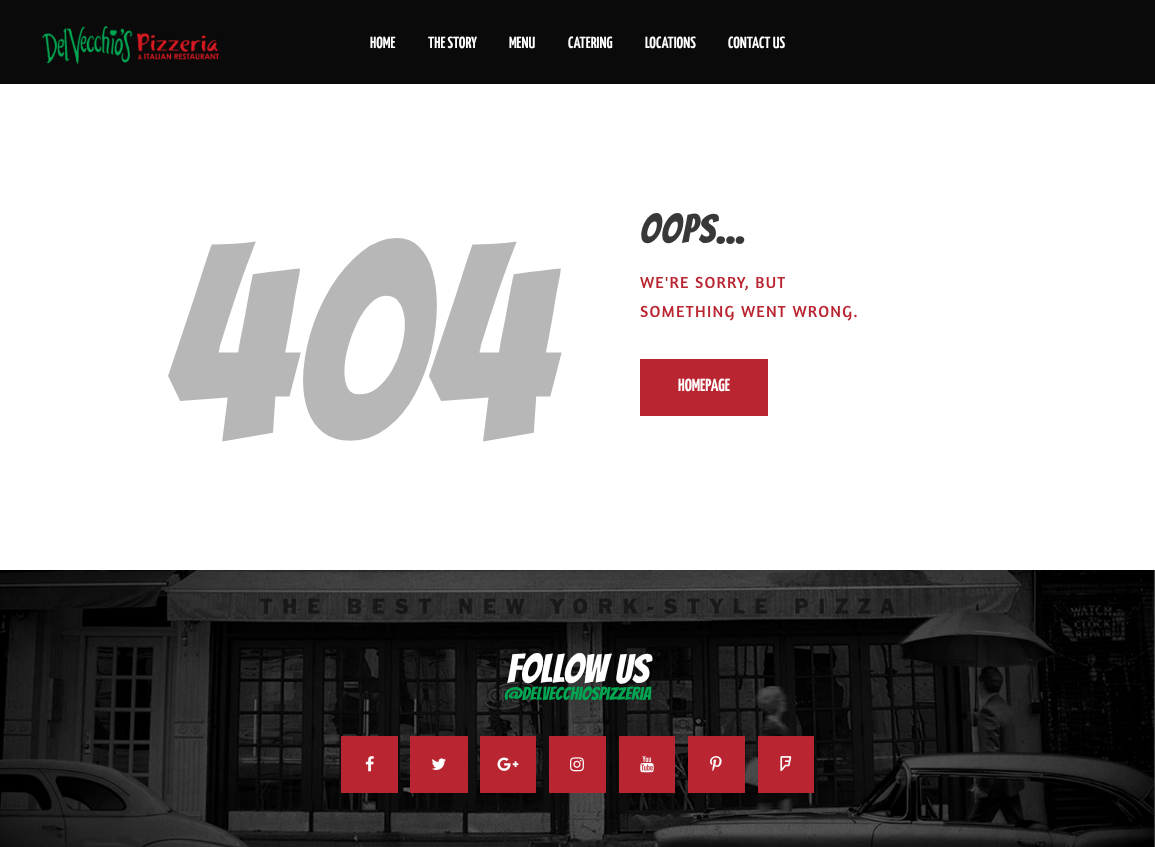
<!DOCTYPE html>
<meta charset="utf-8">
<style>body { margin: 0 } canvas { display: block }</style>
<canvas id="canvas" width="1155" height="847"></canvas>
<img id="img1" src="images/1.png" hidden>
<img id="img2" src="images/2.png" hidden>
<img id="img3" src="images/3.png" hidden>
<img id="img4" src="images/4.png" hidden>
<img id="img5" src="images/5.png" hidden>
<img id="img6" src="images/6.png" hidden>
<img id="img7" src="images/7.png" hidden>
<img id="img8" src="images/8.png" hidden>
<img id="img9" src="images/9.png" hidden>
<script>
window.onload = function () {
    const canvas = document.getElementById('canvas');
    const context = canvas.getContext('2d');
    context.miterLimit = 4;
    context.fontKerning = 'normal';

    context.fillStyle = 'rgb(255, 255, 255)';
    context.fillRect(0, 0, 1155, 847);
    context.fillStyle = 'rgb(10, 10, 10)';
    context.fillRect(0, 0, 1155, 84);
    context.drawImage(document.getElementById('img1'), 42, 26, 177, 38);
    context.fillStyle = 'rgb(185, 37, 48)';
    context.fillRect(640, 359, 128, 57);
    context.drawImage(document.getElementById('img2'), 0, 570, 1155, 277);
    context.fillRect(341, 736, 57, 57);
    context.drawImage(document.getElementById('img3'), 365, 756, 9, 16);
    context.fillRect(410, 736, 58, 57);
    context.drawImage(document.getElementById('img4'), 431, 758, 15, 12);
    context.fillRect(480, 736, 56, 57);
    context.drawImage(document.getElementById('img5'), 497, 757, 22, 14);
    context.fillRect(549, 736, 57, 57);
    context.drawImage(document.getElementById('img6'), 570, 757, 14, 15);
    context.fillRect(619, 736, 56, 57);
    context.drawImage(document.getElementById('img7'), 640, 756, 14, 17);
    context.fillRect(688, 736, 57, 57);
    context.drawImage(document.getElementById('img8'), 710, 756, 12, 16);
    context.fillRect(758, 736, 56, 57);
    context.drawImage(document.getElementById('img9'), 780, 756, 12, 16);
    context.font = 'bold 16.25px Yanone Kaffeesatz';
    context.fillStyle = 'rgb(255, 255, 255)';
    context.fillText('HOME', 370, 48);
    context.fillText('THE STORY', 428, 48);
    context.fillText('MENU', 509, 48);
    context.fillText('CATERING', 568, 48);
    context.fillText('LOCATIONS', 645, 48);
    context.fillText('CONTACT US', 728, 48);
    context.font = '276px Bangers';
    context.fillStyle = 'rgb(183, 183, 183)';
    context.fillText('404', 162, 441);
    context.letterSpacing = '1.25px';
    context.font = '40px Bangers';
    context.fillStyle = 'rgb(56, 56, 56)';
    context.fillText('OOPS...', 640, 243);
    context.font = '16.25px Amaranth';
    context.fillStyle = 'rgb(185, 37, 48)';
    context.fillText('WE\'RE SORRY, BUT', 640, 288);
    context.fillText('SOMETHING WENT WRONG.', 640, 317);
    context.letterSpacing = '0px';
    context.font = 'bold 17.5px Yanone Kaffeesatz';
    context.fillStyle = 'rgb(255, 255, 255)';
    context.fillText('HOMEPAGE', 678, 391);
    context.font = '40px Bangers';
    context.fillText('FOLLOW US', 507, 683);
    context.font = '18.25px Bangers';
    context.fillStyle = 'rgb(0, 166, 81)';
    context.fillText('@delvecchiospizzeria', 504, 700);
};
</script>
